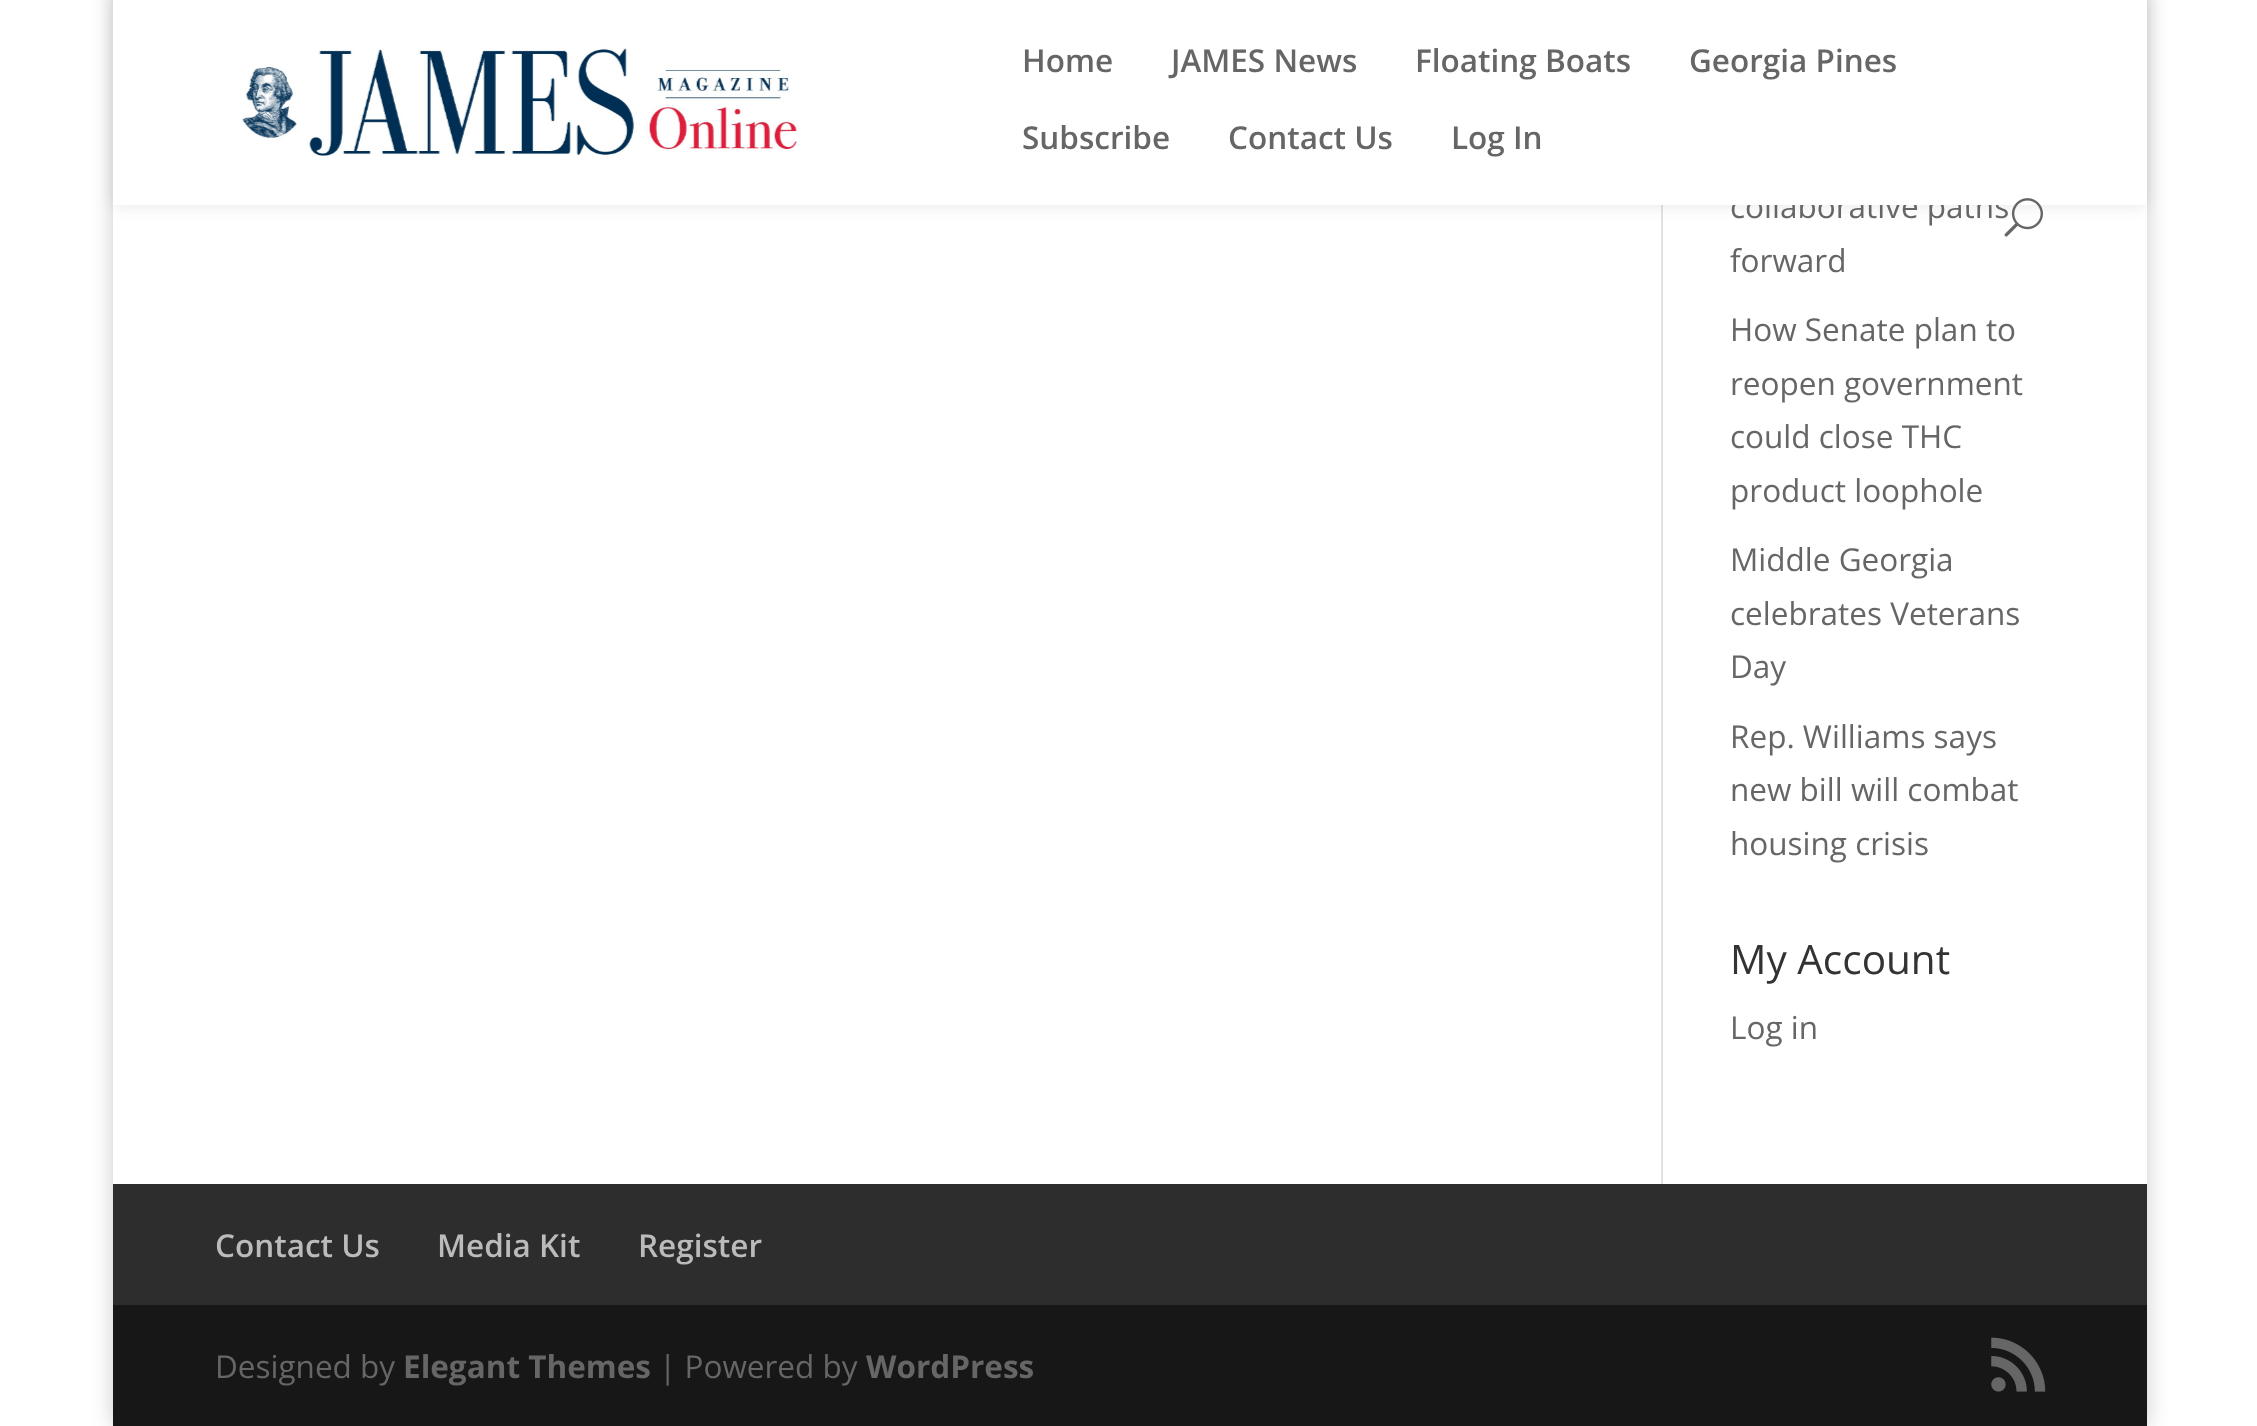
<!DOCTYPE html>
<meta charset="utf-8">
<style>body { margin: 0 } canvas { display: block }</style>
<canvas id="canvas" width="2257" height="1426"></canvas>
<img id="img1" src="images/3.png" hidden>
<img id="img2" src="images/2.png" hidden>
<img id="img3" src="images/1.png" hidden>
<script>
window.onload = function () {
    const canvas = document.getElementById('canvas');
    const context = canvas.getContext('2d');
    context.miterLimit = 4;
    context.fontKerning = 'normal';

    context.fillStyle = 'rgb(255, 255, 255)';
    context.fillRect(0, 0, 2257, 1426);
    context.fillStyle = 'rgba(0, 0, 0, 0.2)';
    context.filter = 'blur(11px)';
    context.beginPath();
    context.rect(113, -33, 2034, 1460);
    context.fill();
    context.filter = 'none';
    context.fillStyle = 'rgb(255, 255, 255)';
    context.fillRect(113, 205, 2034, 979);
    context.fillStyle = 'rgb(226, 226, 226)';
    context.fillRect(1661, 205, 2, 979);
    context.fillStyle = 'rgba(0, 0, 0, 0.1)';
    context.filter = 'blur(8px)';
    context.beginPath();
    context.rect(113, 0, 2034, 205);
    context.fill();
    context.filter = 'none';
    context.fillStyle = 'rgb(45, 45, 45)';
    context.fillRect(113, 1184, 2034, 121);
    context.fillStyle = 'rgb(23, 23, 23)';
    context.fillRect(113, 1305, 2034, 121);
    context.drawImage(document.getElementById('img1'), 1991, 1337, 55, 55);
    context.font = '31.5px Open Sans';
    context.fillStyle = 'rgb(102, 102, 102)';
    context.fillText('collaborative paths', 1730, 218);
    context.fillStyle = 'rgb(255, 255, 255)';
    context.fillRect(113, 0, 2034, 205);
    context.drawImage(document.getElementById('img2'), 2004, 198, 39, 39);
    context.font = '600 31.5px Open Sans';
    context.fillStyle = 'rgb(102, 102, 102)';
    context.fillText('Log In', 1451, 149);
    context.fillText('Contact Us', 1228, 149);
    context.fillText('Subscribe', 1022, 149);
    context.fillText('Georgia Pines', 1689, 72);
    context.fillText('Floating Boats', 1415, 72);
    context.fillText('JAMES News', 1171, 72);
    context.fillText('Home', 1022, 72);
    context.drawImage(document.getElementById('img3'), 242, 47, 556, 109);
    context.font = '31.5px Open Sans';
    context.fillText('forward', 1730, 272);
    context.fillText('How Senate plan to', 1730, 341);
    context.fillText('reopen government', 1730, 395);
    context.fillText('could close THC', 1730, 448);
    context.fillText('product loophole', 1730, 502);
    context.fillText('Middle Georgia', 1730, 571);
    context.fillText('celebrates Veterans', 1730, 625);
    context.fillText('Day', 1730, 678);
    context.fillText('Rep. Williams says', 1730, 748);
    context.fillText('new bill will combat', 1730, 801);
    context.fillText('housing crisis', 1730, 855);
    context.font = '40.5px Open Sans';
    context.fillStyle = 'rgb(51, 51, 51)';
    context.fillText('My Account', 1730, 974);
    context.font = '31.5px Open Sans';
    context.fillStyle = 'rgb(102, 102, 102)';
    context.fillText('Log in', 1730, 1039);
    context.font = '600 31.5px Open Sans';
    context.fillStyle = 'rgb(187, 187, 187)';
    context.fillText('Contact Us', 215, 1257);
    context.fillText('Media Kit', 437, 1257);
    context.fillText('Register', 638, 1257);
    context.font = '31.5px Open Sans';
    context.fillStyle = 'rgb(102, 102, 102)';
    context.fillText('Designed by', 215, 1378);
    context.font = 'bold 31.5px Open Sans';
    context.fillText('Elegant Themes', 403, 1378);
    context.font = '31.5px Open Sans';
    context.fillText('| Powered by', 659, 1378);
    context.font = 'bold 31.5px Open Sans';
    context.fillText('WordPress', 866, 1378);
};
</script>
